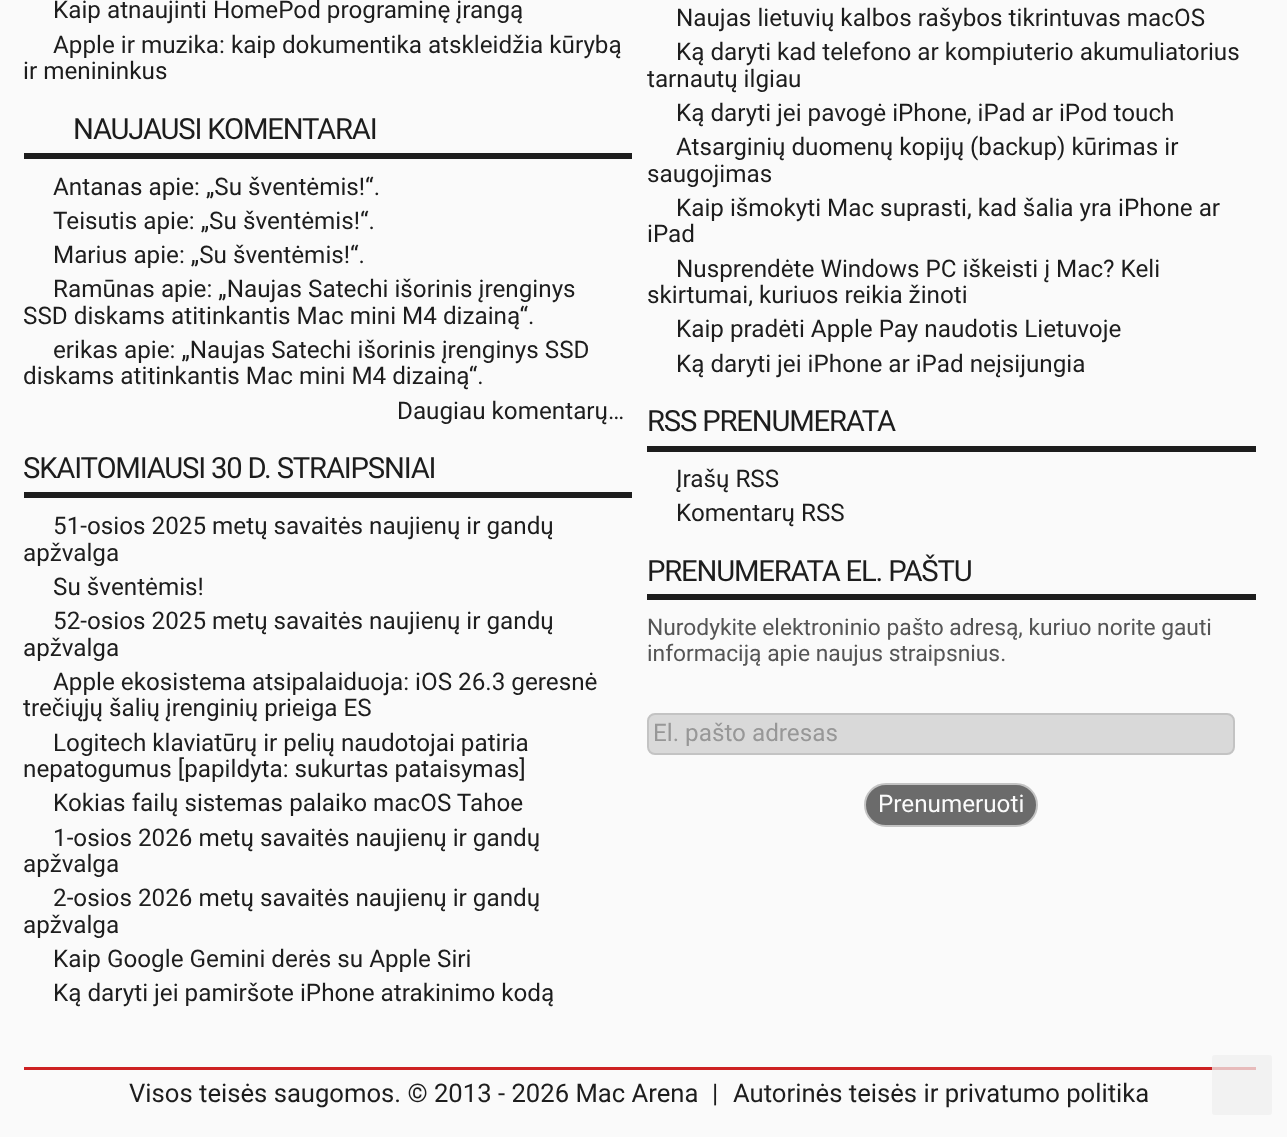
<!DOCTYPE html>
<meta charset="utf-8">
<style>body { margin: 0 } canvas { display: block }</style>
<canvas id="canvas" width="1287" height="1137"></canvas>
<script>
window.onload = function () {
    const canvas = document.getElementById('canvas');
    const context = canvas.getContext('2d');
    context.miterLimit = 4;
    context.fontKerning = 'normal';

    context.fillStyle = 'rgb(250, 250, 250)';
    context.fillRect(0, 0, 1287, 1137);
    context.fillStyle = 'rgb(29, 29, 29)';
    context.fillRect(24, 153, 608, 6);
    context.fillRect(24, 492, 608, 6);
    context.fillRect(647, 446, 609, 6);
    context.fillRect(647, 594, 609, 6);
    context.fillStyle = 'rgb(217, 217, 217)';
    context.beginPath();
    context.roundRect(648, 714, 586, 40, 7);
    context.fill();
    context.strokeStyle = 'rgb(195, 195, 195)';
    context.lineWidth = 2;
    context.stroke();
    context.fillStyle = 'rgb(107, 107, 107)';
    context.beginPath();
    context.roundRect(865, 784, 172, 42, 21);
    context.fill();
    context.stroke();
    context.fillStyle = 'rgb(205, 33, 34)';
    context.fillRect(24, 1067, 1232, 3);
    context.fillStyle = 'rgba(239, 239, 239, 0.75)';
    context.beginPath();
    context.roundRect(1212, 1055, 60, 60, 3);
    context.fill();
    context.font = '24.25px "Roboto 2"';
    context.fillStyle = 'rgb(29, 29, 29)';
    context.fillText('Kaip atnaujinti HomePod programinę įrangą', 53, 18);
    context.fillText('Apple ir muzika: kaip dokumentika atskleidžia kūrybą', 53, 53);
    context.fillText('ir menininkus', 23, 79);
    context.fillText('Naujas lietuvių kalbos rašybos tikrintuvas macOS', 676, 26);
    context.fillText('Ką daryti kad telefono ar kompiuterio akumuliatorius', 676, 60);
    context.fillText('tarnautų ilgiau', 647, 87);
    context.fillText('Ką daryti jei pavogė iPhone, iPad ar iPod touch', 676, 121);
    context.fillText('Atsarginių duomenų kopijų (backup) kūrimas ir', 676, 155);
    context.fillText('saugojimas', 647, 182);
    context.fillText('Kaip išmokyti Mac suprasti, kad šalia yra iPhone ar', 676, 216);
    context.fillText('iPad', 647, 242);
    context.fillText('Nusprendėte Windows PC iškeisti į Mac? Keli', 676, 277);
    context.fillText('skirtumai, kuriuos reikia žinoti', 647, 303);
    context.fillText('Kaip pradėti Apple Pay naudotis Lietuvoje', 676, 337);
    context.fillText('Ką daryti jei iPhone ar iPad neįsijungia', 676, 372);
    context.letterSpacing = '-1.2px';
    context.font = '29.25px Roboto';
    context.fillText('NAUJAUSI KOMENTARAI', 73, 139);
    context.letterSpacing = '0px';
    context.font = '24.25px "Roboto 2"';
    context.fillText('Antanas apie: „Su šventėmis!“.', 53, 195);
    context.fillText('Teisutis apie: „Su šventėmis!“.', 53, 229);
    context.fillText('Marius apie: „Su šventėmis!“.', 53, 263);
    context.fillText('Ramūnas apie: „Naujas Satechi išorinis įrenginys', 53, 297);
    context.fillText('SSD diskams atitinkantis Mac mini M4 dizainą“.', 23, 324);
    context.fillText('erikas apie: „Naujas Satechi išorinis įrenginys SSD', 53, 358);
    context.fillText('diskams atitinkantis Mac mini M4 dizainą“.', 23, 384);
    context.fillText('Daugiau komentarų…', 397, 419);
    context.letterSpacing = '-1.2px';
    context.font = '29.25px Roboto';
    context.fillText('SKAITOMIAUSI 30 D. STRAIPSNIAI', 23, 478);
    context.letterSpacing = '0px';
    context.font = '24.25px "Roboto 2"';
    context.fillText('51-osios 2025 metų savaitės naujienų ir gandų', 53, 534);
    context.fillText('apžvalga', 23, 561);
    context.fillText('Su šventėmis!', 53, 595);
    context.fillText('52-osios 2025 metų savaitės naujienų ir gandų', 53, 629);
    context.fillText('apžvalga', 23, 656);
    context.fillText('Apple ekosistema atsipalaiduoja: iOS 26.3 geresnė', 53, 690);
    context.fillText('trečiųjų šalių įrenginių prieiga ES', 23, 716);
    context.fillText('Logitech klaviatūrų ir pelių naudotojai patiria', 53, 751);
    context.fillText('nepatogumus [papildyta: sukurtas pataisymas]', 23, 777);
    context.fillText('Kokias failų sistemas palaiko macOS Tahoe', 53, 811);
    context.fillText('1-osios 2026 metų savaitės naujienų ir gandų', 53, 846);
    context.fillText('apžvalga', 23, 872);
    context.fillText('2-osios 2026 metų savaitės naujienų ir gandų', 53, 906);
    context.fillText('apžvalga', 23, 933);
    context.fillText('Kaip Google Gemini derės su Apple Siri', 53, 967);
    context.fillText('Ką daryti jei pamiršote iPhone atrakinimo kodą', 53, 1001);
    context.letterSpacing = '-1.2px';
    context.font = '29.25px Roboto';
    context.fillText('RSS PRENUMERATA', 647, 431);
    context.letterSpacing = '0px';
    context.font = '24.25px "Roboto 2"';
    context.fillText('Įrašų RSS', 676, 487);
    context.fillText('Komentarų RSS', 676, 521);
    context.letterSpacing = '-1.2px';
    context.font = '29.25px Roboto';
    context.fillText('PRENUMERATA EL. PAŠTU', 647, 581);
    context.letterSpacing = '0px';
    context.font = '22.8px Roboto';
    context.fillStyle = 'rgb(85, 85, 85)';
    context.fillText('Nurodykite elektroninio pašto adresą, kuriuo norite gauti', 647, 635);
    context.fillText('informaciją apie naujus straipsnius.', 647, 661);
    context.font = '24.25px "Roboto 2"';
    context.fillStyle = 'rgb(151, 151, 151)';
    context.fillText('El. pašto adresas', 653, 741);
    context.fillStyle = 'rgb(250, 250, 250)';
    context.fillText('Prenumeruoti', 878, 812);
    context.font = '25.65px Roboto';
    context.fillStyle = 'rgb(29, 29, 29)';
    context.fillText('Visos teisės saugomos. © 2013 - 2026 Mac Arena', 129, 1102);
    context.fillText('|', 712, 1102);
    context.fillText('Autorinės teisės ir privatumo politika', 733, 1102);
};
</script>
